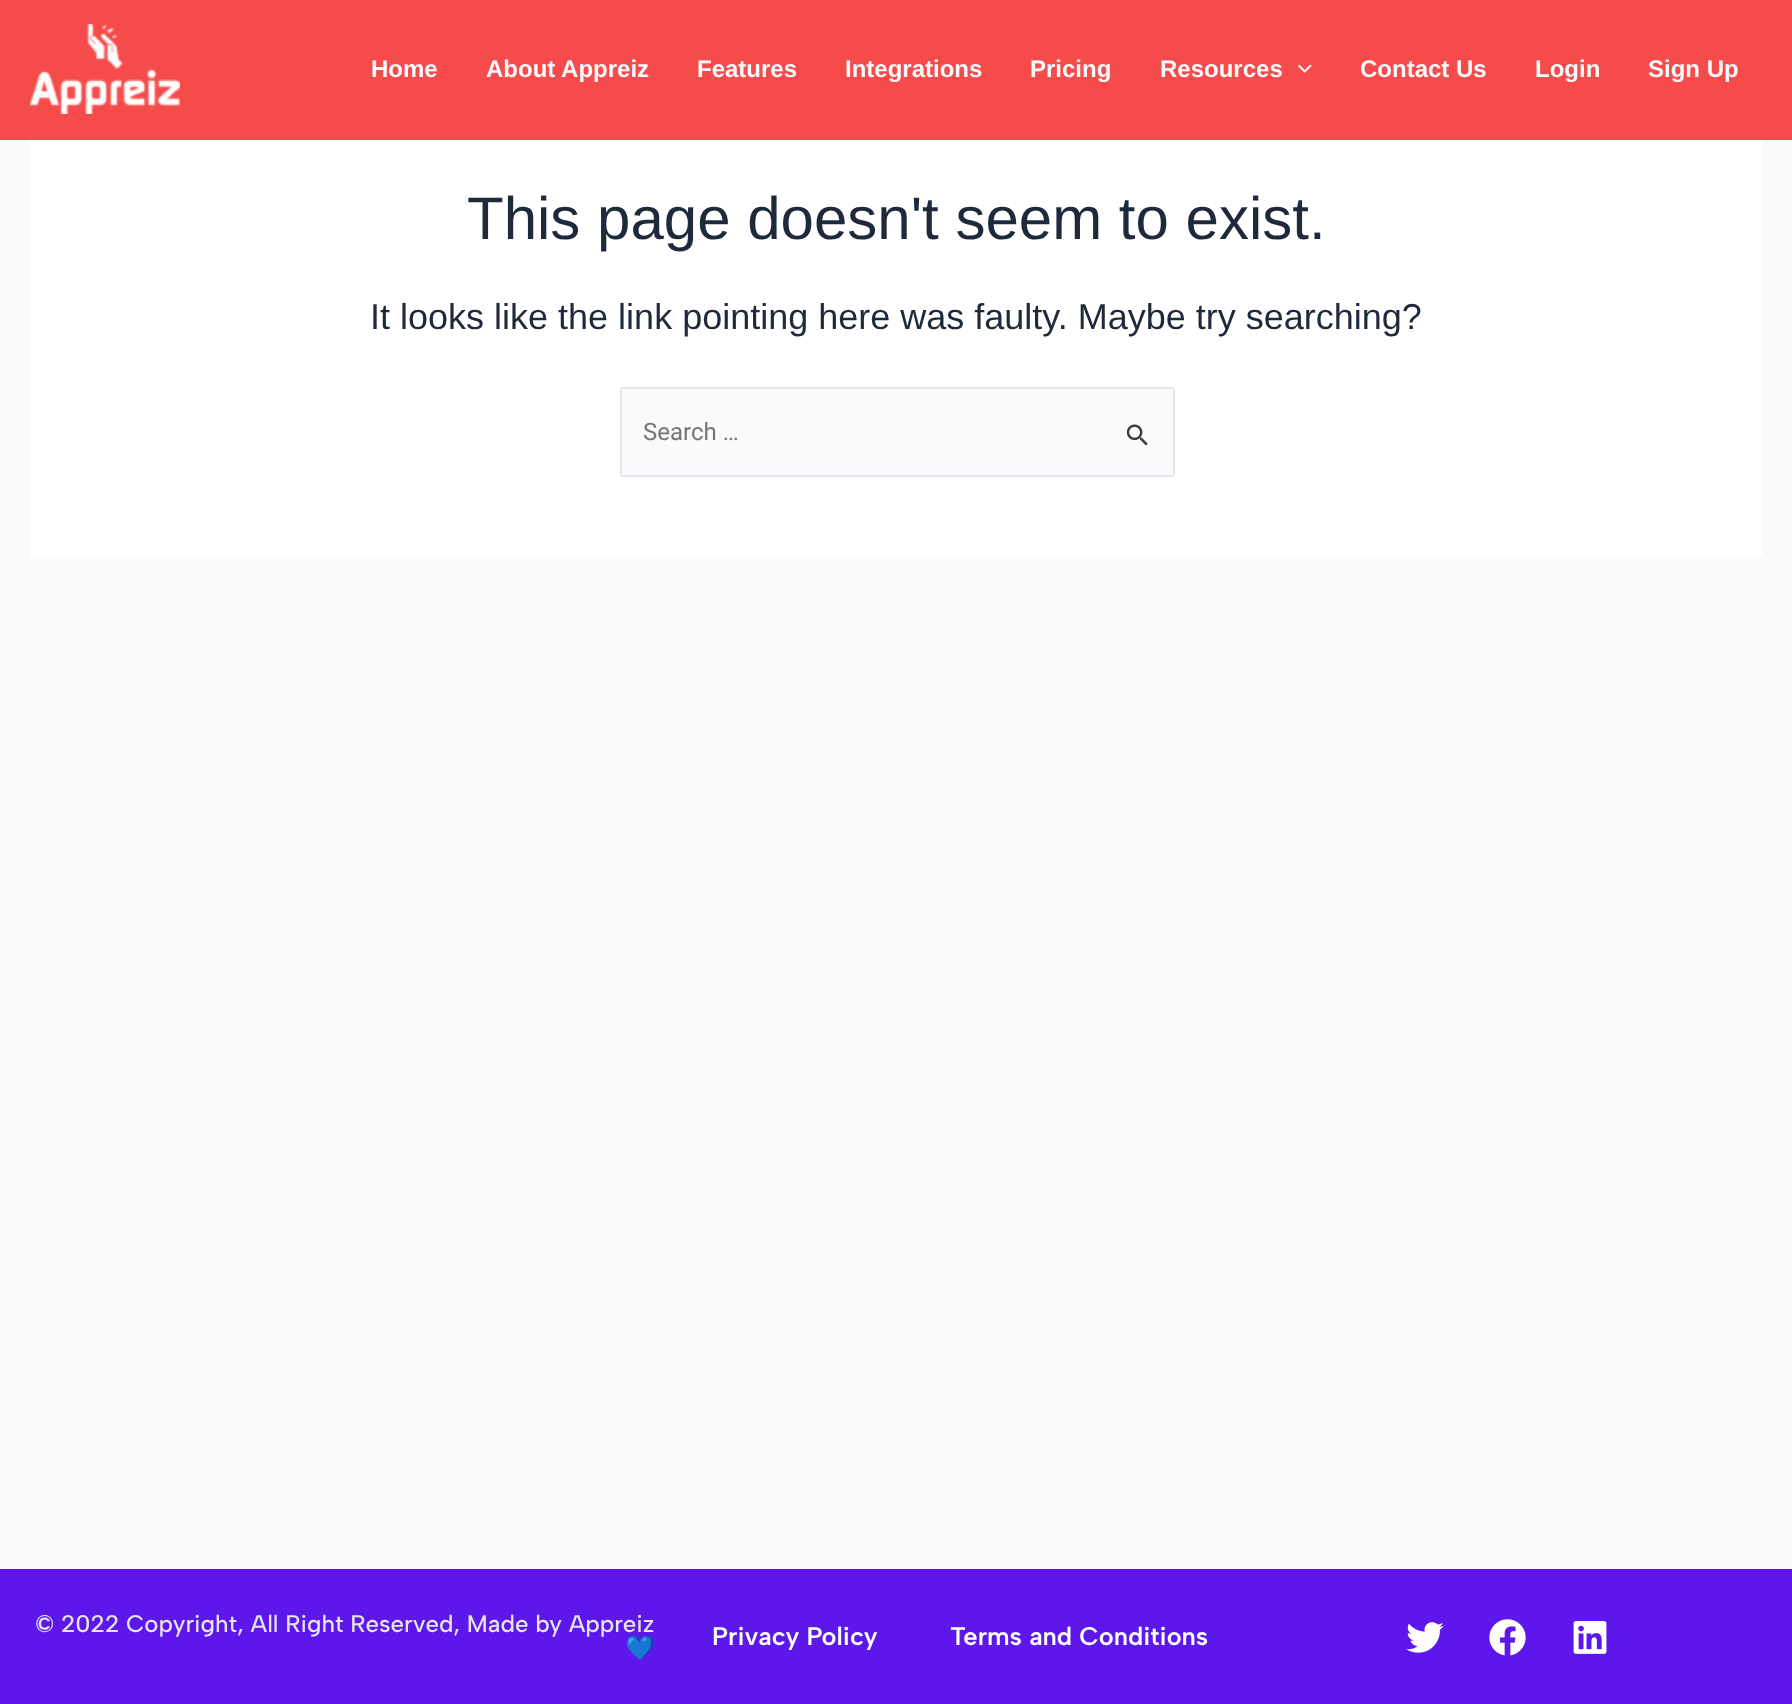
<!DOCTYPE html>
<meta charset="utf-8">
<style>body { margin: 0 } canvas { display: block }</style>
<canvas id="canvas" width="1792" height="1704"></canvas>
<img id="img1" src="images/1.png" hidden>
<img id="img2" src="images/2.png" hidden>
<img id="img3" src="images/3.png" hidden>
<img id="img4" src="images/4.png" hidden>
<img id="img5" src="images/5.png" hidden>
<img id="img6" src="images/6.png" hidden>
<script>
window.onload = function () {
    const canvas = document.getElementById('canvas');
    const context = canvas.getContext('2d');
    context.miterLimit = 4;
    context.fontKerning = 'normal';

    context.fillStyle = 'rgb(249, 250, 251)';
    context.fillRect(0, 0, 1792, 1704);
    context.fillStyle = 'rgb(246, 75, 75)';
    context.fillRect(0, 0, 1792, 140);
    context.drawImage(document.getElementById('img1'), 30, 24, 150, 90);
    context.drawImage(document.getElementById('img2'), 1298, 64, 14, 9);
    context.fillStyle = 'rgb(255, 255, 255)';
    context.fillRect(30, 140, 1733, 417);
    context.fillStyle = 'rgb(250, 250, 250)';
    context.beginPath();
    context.roundRect(621, 388, 553, 88, 2);
    context.fill();
    context.strokeStyle = 'rgb(226, 232, 240)';
    context.lineWidth = 2;
    context.stroke();
    context.drawImage(document.getElementById('img3'), 1127, 424, 21, 22);
    context.fillStyle = 'rgb(93, 23, 235)';
    context.fillRect(0, 1569, 1792, 135);
    context.drawImage(document.getElementById('img4'), 1406, 1622, 38, 31);
    context.drawImage(document.getElementById('img5'), 1489, 1619, 37, 37);
    context.drawImage(document.getElementById('img6'), 1573, 1621, 34, 33);
    context.font = 'bold 24px Liberation Sans';
    context.fillStyle = 'rgb(249, 250, 251)';
    context.fillText('Home', 371, 77);
    context.fillText('About Appreiz', 486, 77);
    context.fillText('Features', 697, 77);
    context.fillText('Integrations', 845, 77);
    context.fillText('Pricing', 1030, 77);
    context.fillText('Resources', 1160, 77);
    context.fillText('Contact Us', 1360, 77);
    context.fillText('Login', 1535, 77);
    context.fillText('Sign Up', 1648, 77);
    context.font = '60px Liberation Sans';
    context.fillStyle = 'rgb(30, 41, 59)';
    context.fillText('This page doesn\'t seem to exist.', 467, 239);
    context.font = '36px Liberation Sans';
    context.fillText('It looks like the link pointing here was faulty. Maybe try searching?', 370, 329);
    context.font = '24px Roboto';
    context.fillStyle = 'rgb(117, 117, 117)';
    context.fillText('Search …', 643, 440);
    context.font = '500 24px Albert Sans';
    context.fillStyle = 'rgb(229, 229, 229)';
    context.fillText('© 2022 Copyright, All Right Reserved, Made by Appreiz', 35, 1632);
    context.font = '24px Noto Color Emoji';
    context.fillText('💙', 625, 1656);
    context.font = '600 25.5px Albert Sans';
    context.fillStyle = 'rgb(255, 255, 255)';
    context.fillText('Privacy Policy', 712, 1645);
    context.fillText('Terms and Conditions', 950, 1645);
};
</script>
